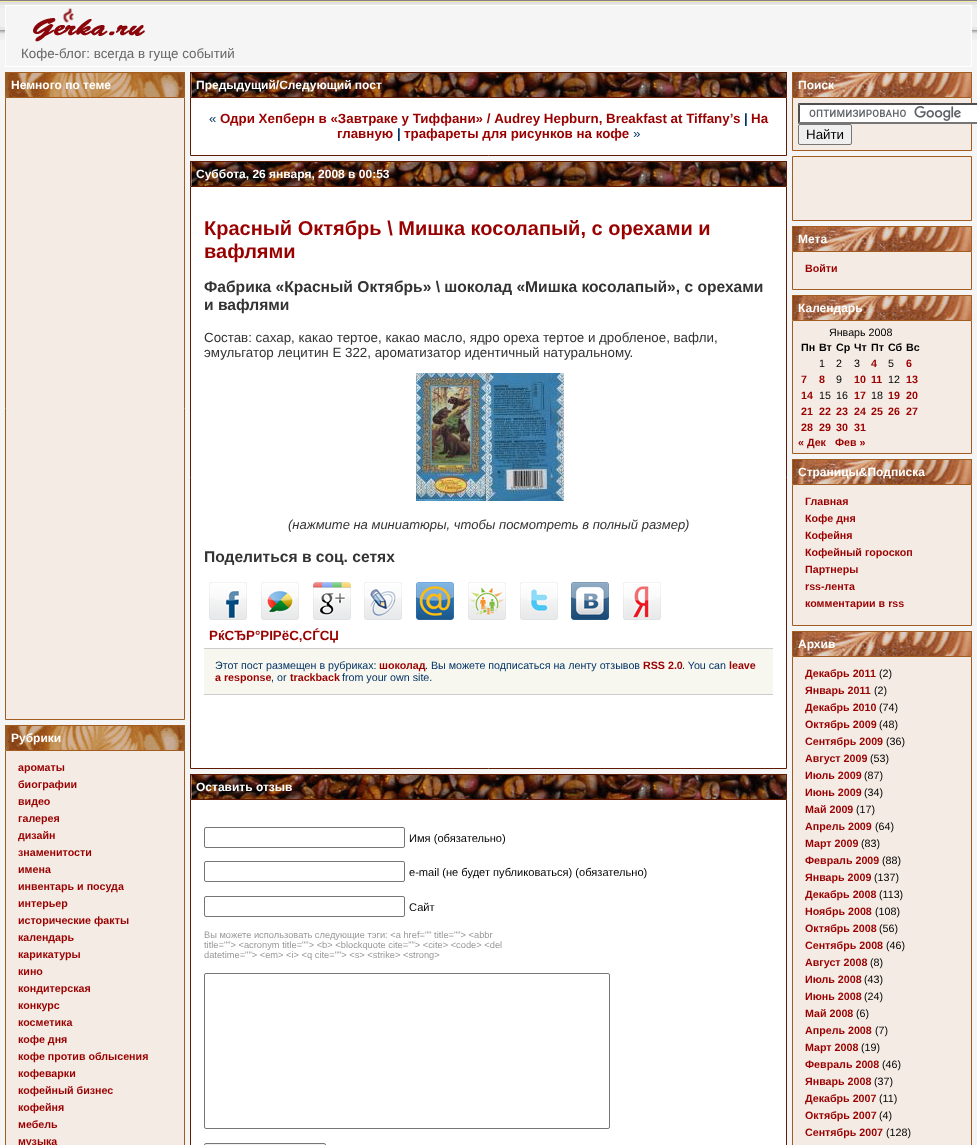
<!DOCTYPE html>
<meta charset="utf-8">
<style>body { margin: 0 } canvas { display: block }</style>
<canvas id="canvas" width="977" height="1145"></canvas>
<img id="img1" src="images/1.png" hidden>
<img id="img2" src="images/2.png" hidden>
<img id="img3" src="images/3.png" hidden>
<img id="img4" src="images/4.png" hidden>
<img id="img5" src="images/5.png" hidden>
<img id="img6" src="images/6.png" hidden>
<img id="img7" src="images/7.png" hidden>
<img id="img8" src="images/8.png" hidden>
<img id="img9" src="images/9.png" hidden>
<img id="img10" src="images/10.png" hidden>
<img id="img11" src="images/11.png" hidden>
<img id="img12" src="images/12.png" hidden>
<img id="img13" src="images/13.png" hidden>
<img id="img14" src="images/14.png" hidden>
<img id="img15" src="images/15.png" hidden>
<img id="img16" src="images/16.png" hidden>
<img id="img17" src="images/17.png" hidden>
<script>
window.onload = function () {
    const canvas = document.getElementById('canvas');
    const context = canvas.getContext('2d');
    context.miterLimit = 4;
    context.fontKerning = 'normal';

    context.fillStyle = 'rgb(245, 245, 245)';
    context.fillRect(0, 0, 977, 1145);
    context.drawImage(document.getElementById('img1'), 0, 0, 977, 40);
    context.fillRect(6, 6, 965, 34);
    context.strokeStyle = 'rgb(255, 255, 255)';
    context.strokeRect(5.5, 5.5, 966, 61);
    context.drawImage(document.getElementById('img2'), 33, 8, 112, 34);
    context.drawImage(document.getElementById('img3'), 6, 73, 178, 24);
    context.fillStyle = 'rgb(162, 92, 32)';
    context.fillRect(5, 72, 180, 1);
    context.fillRect(184, 72, 1, 25);
    context.fillRect(5, 72, 1, 25);
    context.fillStyle = 'rgb(244, 235, 228)';
    context.beginPath();
    context.rect(5.5, 97.5, 179, 622);
    context.fill();
    context.strokeStyle = 'rgb(162, 92, 32)';
    context.stroke();
    context.drawImage(document.getElementById('img3'), 6, 726, 178, 24);
    context.fillStyle = 'rgb(162, 92, 32)';
    context.fillRect(5, 725, 180, 1);
    context.fillRect(184, 725, 1, 25);
    context.fillRect(5, 725, 1, 25);
    context.fillStyle = 'rgb(244, 235, 228)';
    context.beginPath();
    context.rect(5.5, 750.5, 179, 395);
    context.fill();
    context.stroke();
    context.drawImage(document.getElementById('img4'), 191, 73, 595, 24);
    context.fillStyle = 'rgb(94, 26, 3)';
    context.fillRect(190, 72, 597, 1);
    context.fillRect(786, 72, 1, 25);
    context.fillRect(190, 72, 1, 25);
    context.drawImage(document.getElementById('img5'), 793, 73, 178, 24);
    context.fillStyle = 'rgb(162, 92, 32)';
    context.fillRect(792, 72, 180, 1);
    context.fillRect(971, 72, 1, 25);
    context.fillRect(792, 72, 1, 25);
    context.fillStyle = 'rgb(244, 235, 228)';
    context.beginPath();
    context.rect(792.5, 97.5, 179, 53);
    context.fill();
    context.stroke();
    context.fillStyle = 'rgb(255, 255, 255)';
    context.fillRect(798, 103, 179, 21);
    context.drawImage(document.getElementById('img6'), 809, 106, 152, 15);
    context.fillStyle = 'rgb(79, 79, 79)';
    context.beginPath();
    context.moveTo(798, 103);
    context.lineTo(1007, 103);
    context.lineTo(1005, 105);
    context.lineTo(800, 105);
    context.closePath();
    context.fill();
    context.fillStyle = 'rgb(118, 118, 118)';
    context.beginPath();
    context.moveTo(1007, 124);
    context.lineTo(798, 124);
    context.lineTo(800, 122);
    context.lineTo(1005, 122);
    context.closePath();
    context.fill();
    context.fillStyle = 'rgb(79, 79, 79)';
    context.beginPath();
    context.moveTo(798, 124);
    context.lineTo(798, 103);
    context.lineTo(800, 105);
    context.lineTo(800, 122);
    context.closePath();
    context.fill();
    context.fillStyle = 'rgb(239, 239, 239)';
    context.beginPath();
    context.roundRect(798.5, 124.5, 53, 20, 1.5);
    context.fill();
    context.strokeStyle = 'rgb(118, 118, 118)';
    context.stroke();
    context.fillStyle = 'rgb(244, 235, 228)';
    context.beginPath();
    context.rect(792.5, 156.5, 179, 64);
    context.fill();
    context.strokeStyle = 'rgb(162, 92, 32)';
    context.stroke();
    context.drawImage(document.getElementById('img5'), 793, 227, 178, 24);
    context.fillStyle = 'rgb(162, 92, 32)';
    context.fillRect(792, 226, 180, 1);
    context.fillRect(971, 226, 1, 25);
    context.fillRect(792, 226, 1, 25);
    context.fillStyle = 'rgb(244, 235, 228)';
    context.beginPath();
    context.rect(792.5, 251.5, 179, 38);
    context.fill();
    context.stroke();
    context.drawImage(document.getElementById('img5'), 793, 296, 178, 24);
    context.fillStyle = 'rgb(162, 92, 32)';
    context.fillRect(792, 295, 180, 1);
    context.fillRect(971, 295, 1, 25);
    context.fillRect(792, 295, 1, 25);
    context.fillStyle = 'rgb(244, 235, 228)';
    context.beginPath();
    context.rect(792.5, 320.5, 179, 133);
    context.fill();
    context.stroke();
    context.drawImage(document.getElementById('img5'), 793, 460, 178, 24);
    context.fillStyle = 'rgb(162, 92, 32)';
    context.fillRect(792, 459, 180, 1);
    context.fillRect(971, 459, 1, 25);
    context.fillRect(792, 459, 1, 25);
    context.fillStyle = 'rgb(244, 235, 228)';
    context.beginPath();
    context.rect(792.5, 484.5, 179, 141);
    context.fill();
    context.stroke();
    context.drawImage(document.getElementById('img5'), 793, 632, 178, 24);
    context.fillStyle = 'rgb(162, 92, 32)';
    context.fillRect(792, 631, 180, 1);
    context.fillRect(971, 631, 1, 25);
    context.fillRect(792, 631, 1, 25);
    context.fillStyle = 'rgb(244, 235, 228)';
    context.beginPath();
    context.rect(792.5, 656.5, 179, 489);
    context.fill();
    context.stroke();
    context.fillStyle = 'rgb(255, 255, 255)';
    context.beginPath();
    context.rect(190.5, 97.5, 596, 58);
    context.fill();
    context.strokeStyle = 'rgb(94, 26, 3)';
    context.stroke();
    context.drawImage(document.getElementById('img4'), 191, 162, 595, 24);
    context.fillStyle = 'rgb(94, 26, 3)';
    context.fillRect(190, 161, 597, 1);
    context.fillRect(786, 161, 1, 25);
    context.fillRect(190, 161, 1, 25);
    context.fillStyle = 'rgb(255, 255, 255)';
    context.beginPath();
    context.rect(190.5, 186.5, 596, 582);
    context.fill();
    context.stroke();
    context.drawImage(document.getElementById('img7'), 416, 373, 70, 128);
    context.drawImage(document.getElementById('img8'), 486, 373, 78, 128);
    context.drawImage(document.getElementById('img9'), 209, 582, 38, 38);
    context.drawImage(document.getElementById('img10'), 261, 582, 38, 38);
    context.drawImage(document.getElementById('img11'), 313, 582, 38, 38);
    context.drawImage(document.getElementById('img12'), 364, 582, 38, 38);
    context.drawImage(document.getElementById('img13'), 416, 582, 38, 38);
    context.drawImage(document.getElementById('img14'), 468, 582, 38, 38);
    context.drawImage(document.getElementById('img15'), 520, 582, 38, 38);
    context.drawImage(document.getElementById('img16'), 571, 582, 38, 38);
    context.drawImage(document.getElementById('img17'), 623, 582, 38, 38);
    context.fillStyle = 'rgb(248, 247, 239)';
    context.fillRect(204, 649, 569, 45);
    context.fillStyle = 'rgb(204, 204, 204)';
    context.fillRect(204, 648, 569, 1);
    context.fillRect(204, 694, 569, 1);
    context.drawImage(document.getElementById('img4'), 191, 775, 595, 24);
    context.fillStyle = 'rgb(94, 26, 3)';
    context.fillRect(190, 774, 597, 1);
    context.fillRect(786, 774, 1, 25);
    context.fillRect(190, 774, 1, 25);
    context.fillStyle = 'rgb(255, 255, 255)';
    context.beginPath();
    context.rect(190.5, 799.5, 596, 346);
    context.fill();
    context.stroke();
    context.beginPath();
    context.roundRect(204.5, 827.5, 200, 20, 1.5);
    context.strokeStyle = 'rgb(118, 118, 118)';
    context.stroke();
    context.beginPath();
    context.roundRect(204.5, 861.5, 200, 20, 1.5);
    context.stroke();
    context.beginPath();
    context.roundRect(204.5, 896.5, 200, 20, 1.5);
    context.stroke();
    context.beginPath();
    context.roundRect(204.5, 973.5, 405, 155, 1.5);
    context.stroke();
    context.fillStyle = 'rgb(239, 239, 239)';
    context.beginPath();
    context.roundRect(204.5, 1143.5, 121, 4, 1.5);
    context.fill();
    context.stroke();
    context.font = '13.35px Liberation Sans';
    context.fillStyle = 'rgb(102, 102, 102)';
    context.fillText('Кофе-блог: всегда в гуще событий', 21, 58);
    context.font = 'bold 12px Liberation Sans';
    context.fillStyle = 'rgb(255, 255, 255)';
    context.fillText('Немного по теме', 11, 89);
    context.fillText('Рубрики', 11, 742);
    context.font = 'bold 10.7px Liberation Sans';
    context.fillStyle = 'rgb(153, 0, 0)';
    context.fillText('ароматы', 18, 771);
    context.fillText('биографии', 18, 788);
    context.fillText('видео', 18, 805);
    context.fillText('галерея', 18, 822);
    context.fillText('дизайн', 18, 839);
    context.fillText('знаменитости', 18, 856);
    context.fillText('имена', 18, 873);
    context.fillText('инвентарь и посуда', 18, 890);
    context.fillText('интерьер', 18, 907);
    context.fillText('исторические факты', 18, 924);
    context.fillText('календарь', 18, 941);
    context.fillText('карикатуры', 18, 958);
    context.fillText('кино', 18, 975);
    context.fillText('кондитерская', 18, 992);
    context.fillText('конкурс', 18, 1009);
    context.fillText('косметика', 18, 1026);
    context.fillText('кофе дня', 18, 1043);
    context.fillText('кофе против облысения', 18, 1060);
    context.fillText('кофеварки', 18, 1077);
    context.fillText('кофейный бизнес', 18, 1094);
    context.fillText('кофейня', 18, 1111);
    context.fillText('мебель', 18, 1128);
    context.fillText('музыка', 18, 1145);
    context.font = 'bold 12px Liberation Sans';
    context.fillStyle = 'rgb(255, 255, 255)';
    context.fillText('Предыдущий/Следующий пост', 196, 89);
    context.fillText('Поиск', 798, 89);
    context.font = '13.35px Liberation Sans';
    context.fillStyle = 'rgb(0, 0, 0)';
    context.fillText('Найти', 806, 139);
    context.font = 'bold 12px Liberation Sans';
    context.fillStyle = 'rgb(255, 255, 255)';
    context.fillText('Мета', 798, 243);
    context.font = 'bold 10.7px Liberation Sans';
    context.fillStyle = 'rgb(153, 0, 0)';
    context.fillText('Войти', 805, 272);
    context.font = 'bold 12px Liberation Sans';
    context.fillStyle = 'rgb(255, 255, 255)';
    context.fillText('Календарь', 798, 312);
    context.font = '10.7px Liberation Sans';
    context.fillStyle = 'rgb(0, 0, 0)';
    context.fillText('Январь 2008', 829, 336);
    context.font = 'bold 10.7px Liberation Sans';
    context.fillText('Пн', 801, 351);
    context.fillText('Вт', 819, 351);
    context.fillText('Ср', 836, 351);
    context.fillText('Чт', 854, 351);
    context.fillText('Пт', 871, 351);
    context.fillText('Сб', 888, 351);
    context.fillText('Вс', 906, 351);
    context.font = '10.7px Liberation Sans';
    context.fillText('1', 819, 367);
    context.fillText('2', 836, 367);
    context.fillText('3', 854, 367);
    context.font = 'bold 10.7px Liberation Sans';
    context.fillStyle = 'rgb(153, 0, 0)';
    context.fillText('4', 871, 367);
    context.font = '10.7px Liberation Sans';
    context.fillStyle = 'rgb(0, 0, 0)';
    context.fillText('5', 888, 367);
    context.font = 'bold 10.7px Liberation Sans';
    context.fillStyle = 'rgb(153, 0, 0)';
    context.fillText('6', 906, 367);
    context.fillText('7', 801, 383);
    context.fillText('8', 819, 383);
    context.font = '10.7px Liberation Sans';
    context.fillStyle = 'rgb(0, 0, 0)';
    context.fillText('9', 836, 383);
    context.font = 'bold 10.7px Liberation Sans';
    context.fillStyle = 'rgb(153, 0, 0)';
    context.fillText('10', 854, 383);
    context.fillText('11', 871, 383);
    context.font = '10.7px Liberation Sans';
    context.fillStyle = 'rgb(0, 0, 0)';
    context.fillText('12', 888, 383);
    context.font = 'bold 10.7px Liberation Sans';
    context.fillStyle = 'rgb(153, 0, 0)';
    context.fillText('13', 906, 383);
    context.fillText('14', 801, 399);
    context.font = '10.7px Liberation Sans';
    context.fillStyle = 'rgb(0, 0, 0)';
    context.fillText('15', 819, 399);
    context.fillText('16', 836, 399);
    context.font = 'bold 10.7px Liberation Sans';
    context.fillStyle = 'rgb(153, 0, 0)';
    context.fillText('17', 854, 399);
    context.font = '10.7px Liberation Sans';
    context.fillStyle = 'rgb(0, 0, 0)';
    context.fillText('18', 871, 399);
    context.font = 'bold 10.7px Liberation Sans';
    context.fillStyle = 'rgb(153, 0, 0)';
    context.fillText('19', 888, 399);
    context.fillText('20', 906, 399);
    context.fillText('21', 801, 415);
    context.fillText('22', 819, 415);
    context.fillText('23', 836, 415);
    context.fillText('24', 854, 415);
    context.fillText('25', 871, 415);
    context.fillText('26', 888, 415);
    context.fillText('27', 906, 415);
    context.fillText('28', 801, 431);
    context.fillText('29', 819, 431);
    context.fillText('30', 836, 431);
    context.fillText('31', 854, 431);
    context.fillText('« Дек', 798, 446);
    context.fillText('Фев »', 835, 446);
    context.font = 'bold 12px Liberation Sans';
    context.fillStyle = 'rgb(255, 255, 255)';
    context.fillText('Страницы&Подписка', 798, 476);
    context.font = 'bold 10.7px Liberation Sans';
    context.fillStyle = 'rgb(153, 0, 0)';
    context.fillText('Главная', 805, 505);
    context.fillText('Кофе дня', 805, 522);
    context.fillText('Кофейня', 805, 539);
    context.fillText('Кофейный гороскоп', 805, 556);
    context.fillText('Партнеры', 805, 573);
    context.fillText('rss-лента', 805, 590);
    context.fillText('комментарии в rss', 805, 607);
    context.font = 'bold 12px Liberation Sans';
    context.fillStyle = 'rgb(255, 255, 255)';
    context.fillText('Архив', 798, 648);
    context.font = 'bold 10.7px Liberation Sans';
    context.fillStyle = 'rgb(153, 0, 0)';
    context.fillText('Декабрь 2011', 805, 677);
    context.font = '10.7px Liberation Sans';
    context.fillStyle = 'rgb(0, 0, 0)';
    context.fillText('(2)', 879, 677);
    context.font = 'bold 10.7px Liberation Sans';
    context.fillStyle = 'rgb(153, 0, 0)';
    context.fillText('Январь 2011', 805, 694);
    context.font = '10.7px Liberation Sans';
    context.fillStyle = 'rgb(0, 0, 0)';
    context.fillText('(2)', 874, 694);
    context.font = 'bold 10.7px Liberation Sans';
    context.fillStyle = 'rgb(153, 0, 0)';
    context.fillText('Декабрь 2010', 805, 711);
    context.font = '10.7px Liberation Sans';
    context.fillStyle = 'rgb(0, 0, 0)';
    context.fillText('(74)', 879, 711);
    context.font = 'bold 10.7px Liberation Sans';
    context.fillStyle = 'rgb(153, 0, 0)';
    context.fillText('Октябрь 2009', 805, 728);
    context.font = '10.7px Liberation Sans';
    context.fillStyle = 'rgb(0, 0, 0)';
    context.fillText('(48)', 879, 728);
    context.font = 'bold 10.7px Liberation Sans';
    context.fillStyle = 'rgb(153, 0, 0)';
    context.fillText('Сентябрь 2009', 805, 745);
    context.font = '10.7px Liberation Sans';
    context.fillStyle = 'rgb(0, 0, 0)';
    context.fillText('(36)', 886, 745);
    context.font = 'bold 10.7px Liberation Sans';
    context.fillStyle = 'rgb(153, 0, 0)';
    context.fillText('Август 2009', 805, 762);
    context.font = '10.7px Liberation Sans';
    context.fillStyle = 'rgb(0, 0, 0)';
    context.fillText('(53)', 870, 762);
    context.font = 'bold 10.7px Liberation Sans';
    context.fillStyle = 'rgb(153, 0, 0)';
    context.fillText('Июль 2009', 805, 779);
    context.font = '10.7px Liberation Sans';
    context.fillStyle = 'rgb(0, 0, 0)';
    context.fillText('(87)', 864, 779);
    context.font = 'bold 10.7px Liberation Sans';
    context.fillStyle = 'rgb(153, 0, 0)';
    context.fillText('Июнь 2009', 805, 796);
    context.font = '10.7px Liberation Sans';
    context.fillStyle = 'rgb(0, 0, 0)';
    context.fillText('(34)', 864, 796);
    context.font = 'bold 10.7px Liberation Sans';
    context.fillStyle = 'rgb(153, 0, 0)';
    context.fillText('Май 2009', 805, 813);
    context.font = '10.7px Liberation Sans';
    context.fillStyle = 'rgb(0, 0, 0)';
    context.fillText('(17)', 856, 813);
    context.font = 'bold 10.7px Liberation Sans';
    context.fillStyle = 'rgb(153, 0, 0)';
    context.fillText('Апрель 2009', 805, 830);
    context.font = '10.7px Liberation Sans';
    context.fillStyle = 'rgb(0, 0, 0)';
    context.fillText('(64)', 875, 830);
    context.font = 'bold 10.7px Liberation Sans';
    context.fillStyle = 'rgb(153, 0, 0)';
    context.fillText('Март 2009', 805, 847);
    context.font = '10.7px Liberation Sans';
    context.fillStyle = 'rgb(0, 0, 0)';
    context.fillText('(83)', 861, 847);
    context.font = 'bold 10.7px Liberation Sans';
    context.fillStyle = 'rgb(153, 0, 0)';
    context.fillText('Февраль 2009', 805, 864);
    context.font = '10.7px Liberation Sans';
    context.fillStyle = 'rgb(0, 0, 0)';
    context.fillText('(88)', 882, 864);
    context.font = 'bold 10.7px Liberation Sans';
    context.fillStyle = 'rgb(153, 0, 0)';
    context.fillText('Январь 2009', 805, 881);
    context.font = '10.7px Liberation Sans';
    context.fillStyle = 'rgb(0, 0, 0)';
    context.fillText('(137)', 874, 881);
    context.font = 'bold 10.7px Liberation Sans';
    context.fillStyle = 'rgb(153, 0, 0)';
    context.fillText('Декабрь 2008', 805, 898);
    context.font = '10.7px Liberation Sans';
    context.fillStyle = 'rgb(0, 0, 0)';
    context.fillText('(113)', 879, 898);
    context.font = 'bold 10.7px Liberation Sans';
    context.fillStyle = 'rgb(153, 0, 0)';
    context.fillText('Ноябрь 2008', 805, 915);
    context.font = '10.7px Liberation Sans';
    context.fillStyle = 'rgb(0, 0, 0)';
    context.fillText('(108)', 875, 915);
    context.font = 'bold 10.7px Liberation Sans';
    context.fillStyle = 'rgb(153, 0, 0)';
    context.fillText('Октябрь 2008', 805, 932);
    context.font = '10.7px Liberation Sans';
    context.fillStyle = 'rgb(0, 0, 0)';
    context.fillText('(56)', 879, 932);
    context.font = 'bold 10.7px Liberation Sans';
    context.fillStyle = 'rgb(153, 0, 0)';
    context.fillText('Сентябрь 2008', 805, 949);
    context.font = '10.7px Liberation Sans';
    context.fillStyle = 'rgb(0, 0, 0)';
    context.fillText('(46)', 886, 949);
    context.font = 'bold 10.7px Liberation Sans';
    context.fillStyle = 'rgb(153, 0, 0)';
    context.fillText('Август 2008', 805, 966);
    context.font = '10.7px Liberation Sans';
    context.fillStyle = 'rgb(0, 0, 0)';
    context.fillText('(8)', 870, 966);
    context.font = 'bold 10.7px Liberation Sans';
    context.fillStyle = 'rgb(153, 0, 0)';
    context.fillText('Июль 2008', 805, 983);
    context.font = '10.7px Liberation Sans';
    context.fillStyle = 'rgb(0, 0, 0)';
    context.fillText('(43)', 864, 983);
    context.font = 'bold 10.7px Liberation Sans';
    context.fillStyle = 'rgb(153, 0, 0)';
    context.fillText('Июнь 2008', 805, 1000);
    context.font = '10.7px Liberation Sans';
    context.fillStyle = 'rgb(0, 0, 0)';
    context.fillText('(24)', 864, 1000);
    context.font = 'bold 10.7px Liberation Sans';
    context.fillStyle = 'rgb(153, 0, 0)';
    context.fillText('Май 2008', 805, 1017);
    context.font = '10.7px Liberation Sans';
    context.fillStyle = 'rgb(0, 0, 0)';
    context.fillText('(6)', 856, 1017);
    context.font = 'bold 10.7px Liberation Sans';
    context.fillStyle = 'rgb(153, 0, 0)';
    context.fillText('Апрель 2008', 805, 1034);
    context.font = '10.7px Liberation Sans';
    context.fillStyle = 'rgb(0, 0, 0)';
    context.fillText('(7)', 875, 1034);
    context.font = 'bold 10.7px Liberation Sans';
    context.fillStyle = 'rgb(153, 0, 0)';
    context.fillText('Март 2008', 805, 1051);
    context.font = '10.7px Liberation Sans';
    context.fillStyle = 'rgb(0, 0, 0)';
    context.fillText('(19)', 861, 1051);
    context.font = 'bold 10.7px Liberation Sans';
    context.fillStyle = 'rgb(153, 0, 0)';
    context.fillText('Февраль 2008', 805, 1068);
    context.font = '10.7px Liberation Sans';
    context.fillStyle = 'rgb(0, 0, 0)';
    context.fillText('(46)', 882, 1068);
    context.font = 'bold 10.7px Liberation Sans';
    context.fillStyle = 'rgb(153, 0, 0)';
    context.fillText('Январь 2008', 805, 1085);
    context.font = '10.7px Liberation Sans';
    context.fillStyle = 'rgb(0, 0, 0)';
    context.fillText('(37)', 874, 1085);
    context.font = 'bold 10.7px Liberation Sans';
    context.fillStyle = 'rgb(153, 0, 0)';
    context.fillText('Декабрь 2007', 805, 1102);
    context.font = '10.7px Liberation Sans';
    context.fillStyle = 'rgb(0, 0, 0)';
    context.fillText('(11)', 879, 1102);
    context.font = 'bold 10.7px Liberation Sans';
    context.fillStyle = 'rgb(153, 0, 0)';
    context.fillText('Октябрь 2007', 805, 1119);
    context.font = '10.7px Liberation Sans';
    context.fillStyle = 'rgb(0, 0, 0)';
    context.fillText('(4)', 879, 1119);
    context.font = 'bold 10.7px Liberation Sans';
    context.fillStyle = 'rgb(153, 0, 0)';
    context.fillText('Сентябрь 2007', 805, 1136);
    context.font = '10.7px Liberation Sans';
    context.fillStyle = 'rgb(0, 0, 0)';
    context.fillText('(128)', 886, 1136);
    context.font = '13.35px Liberation Sans';
    context.fillStyle = 'rgb(0, 51, 102)';
    context.fillText('«', 209, 123);
    context.font = 'bold 13.35px Liberation Sans';
    context.fillStyle = 'rgb(153, 0, 0)';
    context.fillText('Одри Хепберн в «Завтраке у Тиффани» / Audrey Hepburn, Breakfast at Tiffany’s', 220, 123);
    context.fillStyle = 'rgb(0, 51, 102)';
    context.fillText('|', 744, 123);
    context.fillStyle = 'rgb(153, 0, 0)';
    context.fillText('На', 751, 123);
    context.fillText('главную', 337, 138);
    context.fillStyle = 'rgb(0, 51, 102)';
    context.fillText('|', 397, 138);
    context.fillStyle = 'rgb(153, 0, 0)';
    context.fillText('трафареты для рисунков на кофе', 404, 138);
    context.font = '13.35px Liberation Sans';
    context.fillStyle = 'rgb(0, 51, 102)';
    context.fillText('»', 633, 138);
    context.font = 'bold 12px Liberation Sans';
    context.fillStyle = 'rgb(255, 255, 255)';
    context.fillText('Суббота, 26 января, 2008 в 00:53', 196, 178);
    context.font = 'bold 20px Liberation Sans';
    context.fillStyle = 'rgb(153, 0, 0)';
    context.fillText('Красный Октябрь \\ Мишка косолапый, с орехами и', 204, 235);
    context.fillText('вафлями', 204, 258);
    context.font = 'bold 15.6px Liberation Sans';
    context.fillStyle = 'rgb(51, 51, 51)';
    context.fillText('Фабрика «Красный Октябрь» \\ шоколад «Мишка косолапый», с орехами', 204, 292);
    context.fillText('и вафлями', 204, 310);
    context.font = '13.35px Liberation Sans';
    context.fillText('Состав: сахар, какао тертое, какао масло, ядро ореха тертое и дробленое, вафли,', 204, 342);
    context.fillText('эмульгатор лецитин Е 322, ароматизатор идентичный натуральному.', 204, 357);
    context.font = 'italic 13px Liberation Sans';
    context.fillText('(нажмите на миниатюры, чтобы посмотреть в полный размер)', 288, 529);
    context.font = 'bold 15.6px Liberation Sans';
    context.fillText('Поделиться в соц. сетях', 204, 562);
    context.font = 'bold 13.35px Liberation Sans';
    context.fillStyle = 'rgb(153, 0, 0)';
    context.fillText('РќСЂР°РІРёС‚СЃСЏ', 209, 640);
    context.font = '10.7px Liberation Sans';
    context.fillStyle = 'rgb(0, 51, 102)';
    context.fillText('Этот пост размещен в рубриках:', 215, 669);
    context.font = 'bold 10.7px Liberation Sans';
    context.fillStyle = 'rgb(153, 0, 0)';
    context.fillText('шоколад', 379, 669);
    context.font = '10.7px Liberation Sans';
    context.fillStyle = 'rgb(0, 51, 102)';
    context.fillText('. Вы можете подписаться на ленту отзывов', 425, 669);
    context.font = 'bold 10.7px Liberation Sans';
    context.fillStyle = 'rgb(153, 0, 0)';
    context.fillText('RSS 2.0', 643, 669);
    context.font = '10.7px Liberation Sans';
    context.fillStyle = 'rgb(0, 51, 102)';
    context.fillText('. You can', 682, 669);
    context.font = 'bold 10.7px Liberation Sans';
    context.fillStyle = 'rgb(153, 0, 0)';
    context.fillText('leave', 729, 669);
    context.fillText('a response', 215, 681);
    context.font = '10.7px Liberation Sans';
    context.fillStyle = 'rgb(0, 51, 102)';
    context.fillText(', or', 271, 681);
    context.font = 'bold 10.7px Liberation Sans';
    context.fillStyle = 'rgb(153, 0, 0)';
    context.fillText('trackback', 290, 681);
    context.font = '10.7px Liberation Sans';
    context.fillStyle = 'rgb(0, 51, 102)';
    context.fillText('from your own site.', 342, 681);
    context.font = 'bold 12px Liberation Sans';
    context.fillStyle = 'rgb(255, 255, 255)';
    context.fillText('Оставить отзыв', 196, 791);
    context.font = '11.1px Liberation Sans';
    context.fillStyle = 'rgb(0, 0, 0)';
    context.fillText('Имя (обязательно)', 409, 842);
    context.fillText('e-mail (не будет публиковаться) (обязательно)', 409, 876);
    context.fillText('Сайт', 409, 911);
    context.font = '9.3px Liberation Sans';
    context.fillStyle = 'rgb(153, 153, 153)';
    context.fillText('Вы можете использовать следующие тэги: <a href="" title=""> <abbr', 204, 938);
    context.fillText('title=""> <acronym title=""> <b> <blockquote cite=""> <cite> <code> <del', 204, 948);
    context.fillText('datetime=""> <em> <i> <q cite=""> <s> <strike> <strong>', 204, 958);
};
</script>
